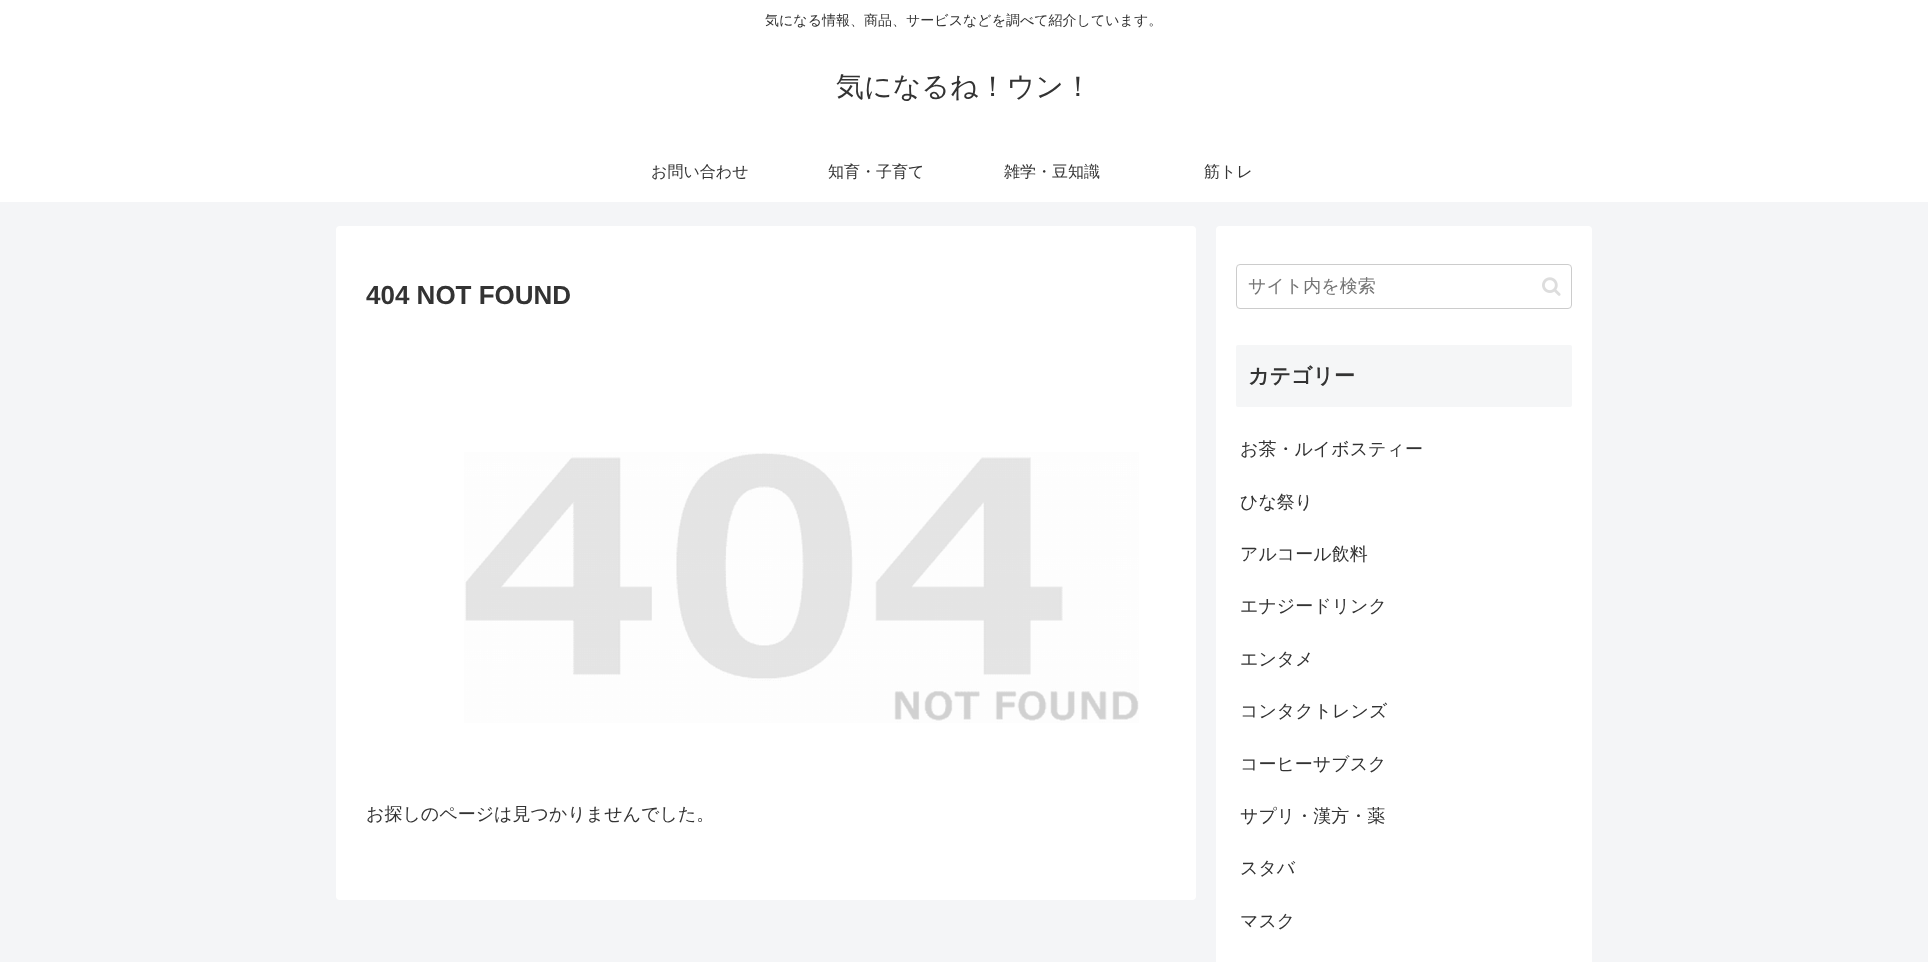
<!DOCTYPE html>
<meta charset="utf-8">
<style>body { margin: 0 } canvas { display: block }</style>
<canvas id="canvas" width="1928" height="962"></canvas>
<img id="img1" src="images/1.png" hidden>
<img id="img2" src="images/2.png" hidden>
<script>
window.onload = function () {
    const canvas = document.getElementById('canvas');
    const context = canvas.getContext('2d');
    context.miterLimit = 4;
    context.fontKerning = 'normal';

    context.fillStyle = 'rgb(244, 245, 247)';
    context.fillRect(0, 0, 1928, 962);
    context.fillStyle = 'rgb(255, 255, 255)';
    context.fillRect(0, 0, 1928, 202);
    context.beginPath();
    context.roundRect(336, 226, 860, 674, 4);
    context.fill();
    context.drawImage(document.getElementById('img1'), 464, 452, 675, 271);
    context.beginPath();
    context.roundRect(1216, 226, 376, 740, 4);
    context.fill();
    context.beginPath();
    context.roundRect(1236.5, 264.5, 335, 44, 3.5);
    context.strokeStyle = 'rgb(204, 204, 204)';
    context.stroke();
    context.drawImage(document.getElementById('img2'), 1542, 277, 19, 19);
    context.fillStyle = 'rgb(245, 246, 247)';
    context.beginPath();
    context.roundRect(1236, 345, 336, 62, 2);
    context.fill();
    context.font = '500 14px WenQuanYi Zen Hei';
    context.fillStyle = 'rgb(51, 51, 51)';
    context.fillText('気になる情報、商品、サービスなどを調べて紹介しています。', 765, 25);
    context.font = '500 28px WenQuanYi Zen Hei';
    context.fillText('気になるね！ウン！', 836, 96);
    context.font = '500 16px WenQuanYi Zen Hei';
    context.fillText('お問い合わせ', 651, 177);
    context.fillText('知育・子育て', 828, 177);
    context.fillText('雑学・豆知識', 1004, 177);
    context.fillText('筋トレ', 1204, 177);
    context.font = 'bold 26px Liberation Sans';
    context.fillText('404 NOT FOUND', 366, 304);
    context.font = '500 18px WenQuanYi Zen Hei';
    context.fillText('お探しのページは見つかりませんでした。', 366, 820);
    context.fillStyle = 'rgb(117, 117, 117)';
    context.fillText('サイト内を検索', 1248, 292);
    context.font = 'bold 21px WenQuanYi Zen Hei';
    context.fillStyle = 'rgb(51, 51, 51)';
    context.fillText('カテゴリー', 1248, 383);
    context.font = '500 18px WenQuanYi Zen Hei';
    context.fillText('お茶・ルイボスティー', 1240, 455);
    context.fillText('ひな祭り', 1240, 508);
    context.fillText('アルコール飲料', 1240, 560);
    context.fillText('エナジードリンク', 1240, 612);
    context.fillText('エンタメ', 1240, 665);
    context.fillText('コンタクトレンズ', 1240, 717);
    context.fillText('コーヒーサブスク', 1240, 770);
    context.fillText('サプリ・漢方・薬', 1240, 822);
    context.fillText('スタバ', 1240, 874);
    context.fillText('マスク', 1240, 927);
};
</script>
